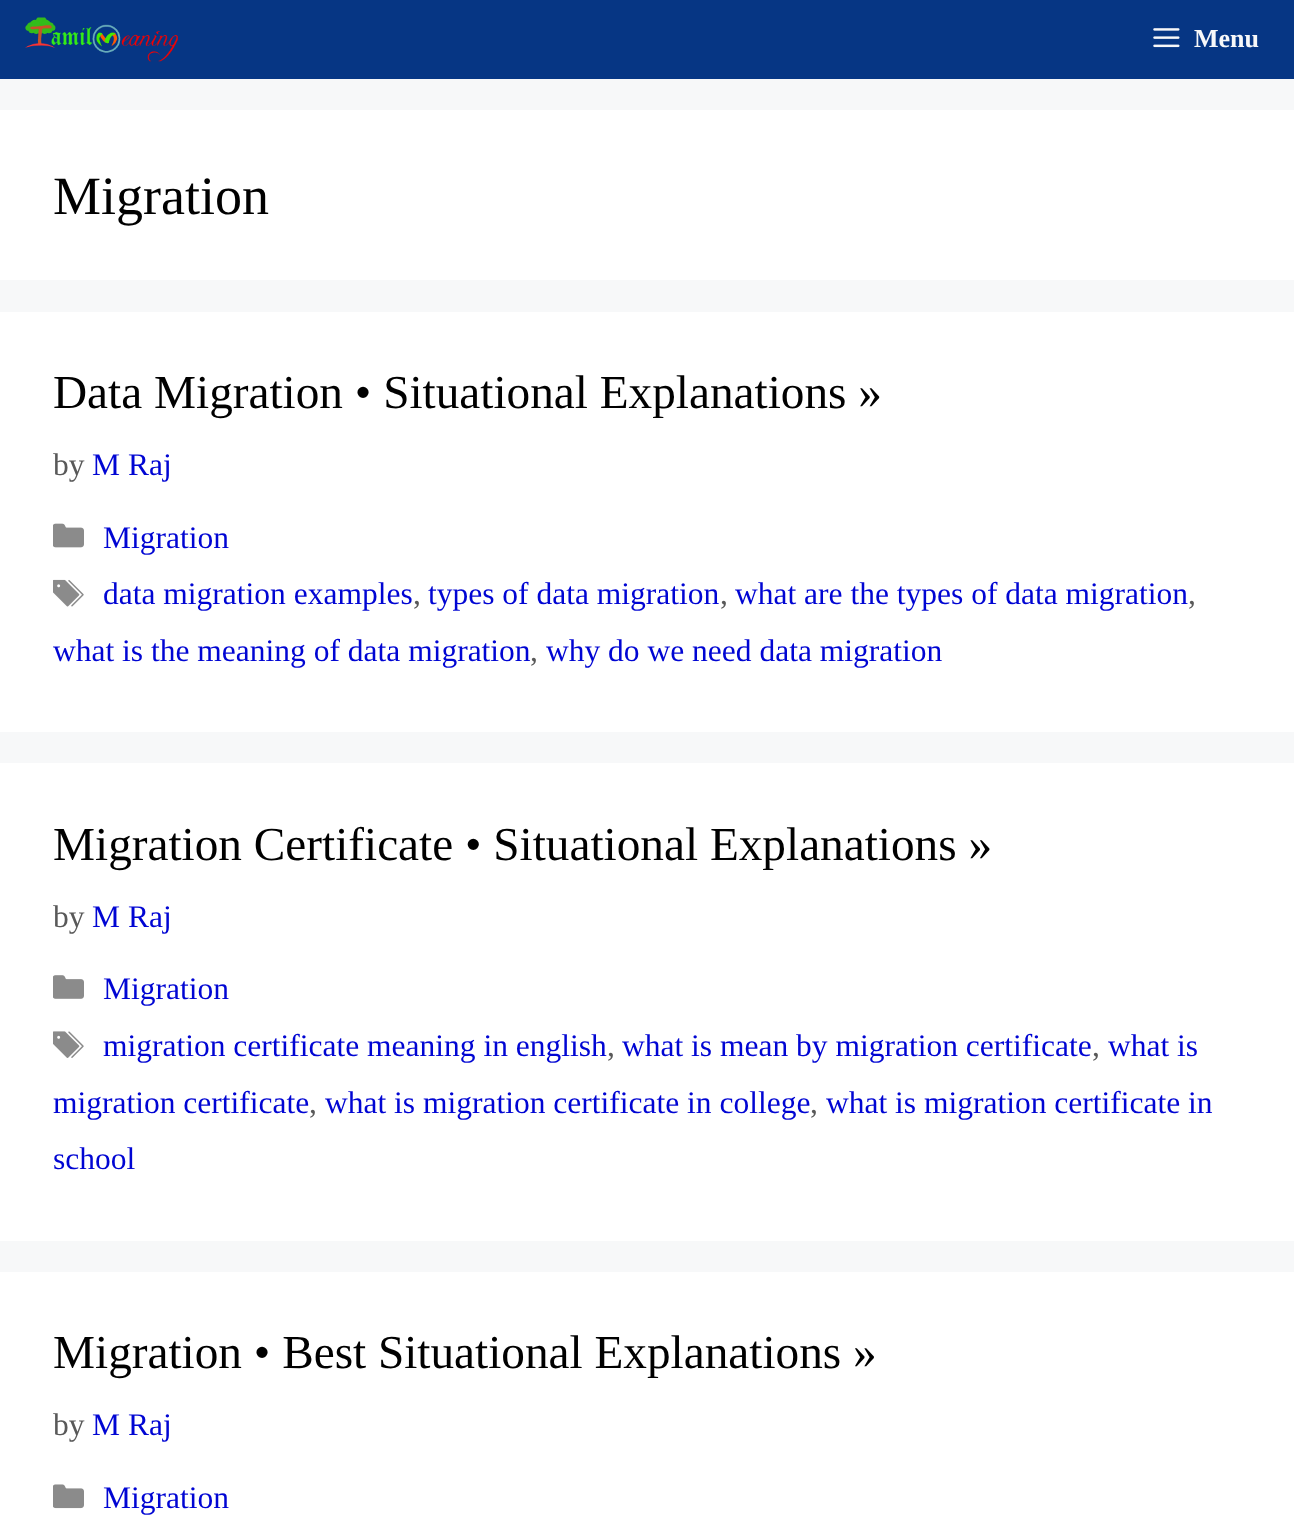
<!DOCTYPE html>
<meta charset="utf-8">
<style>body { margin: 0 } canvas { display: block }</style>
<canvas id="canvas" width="1294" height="1530"></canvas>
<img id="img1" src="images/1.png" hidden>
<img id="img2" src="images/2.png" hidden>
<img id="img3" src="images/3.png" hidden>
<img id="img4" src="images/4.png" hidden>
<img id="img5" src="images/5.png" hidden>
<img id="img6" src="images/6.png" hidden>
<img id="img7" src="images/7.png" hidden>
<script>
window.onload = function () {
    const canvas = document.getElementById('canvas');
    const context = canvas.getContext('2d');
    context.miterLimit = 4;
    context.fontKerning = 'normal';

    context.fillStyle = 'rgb(247, 248, 249)';
    context.fillRect(0, 0, 1294, 1530);
    context.fillStyle = 'rgb(6, 54, 132)';
    context.fillRect(0, 0, 1294, 79);
    context.drawImage(document.getElementById('img1'), 25, 17, 153, 45);
    context.drawImage(document.getElementById('img2'), 1153, 28, 27, 20);
    context.fillStyle = 'rgb(255, 255, 255)';
    context.fillRect(0, 110, 1294, 170);
    context.fillRect(0, 312, 1294, 420);
    context.drawImage(document.getElementById('img3'), 53, 523, 31, 25);
    context.drawImage(document.getElementById('img4'), 53, 579, 31, 28);
    context.fillRect(0, 763, 1294, 478);
    context.drawImage(document.getElementById('img5'), 53, 975, 31, 24);
    context.drawImage(document.getElementById('img6'), 53, 1031, 31, 27);
    context.fillRect(0, 1272, 1294, 258);
    context.drawImage(document.getElementById('img7'), 53, 1484, 31, 25);
    context.font = 'bold 26px Liberation Serif';
    context.fillStyle = 'rgb(247, 248, 249)';
    context.fillText('Menu', 1194, 47);
    context.font = '54px Liberation Serif';
    context.fillStyle = 'rgb(0, 0, 0)';
    context.fillText('Migration', 53, 214);
    context.font = '47.25px Liberation Serif';
    context.fillText('Data Migration • Situational Explanations »', 53, 408);
    context.font = '31.5px Liberation Serif';
    context.fillStyle = 'rgb(89, 89, 89)';
    context.fillText('by', 53, 475);
    context.fillStyle = 'rgb(0, 5, 211)';
    context.fillText('M Raj', 92, 475);
    context.fillText('Migration', 103, 548);
    context.fillText('data migration examples', 103, 604);
    context.fillStyle = 'rgb(89, 89, 89)';
    context.fillText(',', 413, 604);
    context.fillStyle = 'rgb(0, 5, 211)';
    context.fillText('types of data migration', 428, 604);
    context.fillStyle = 'rgb(89, 89, 89)';
    context.fillText(',', 720, 604);
    context.fillStyle = 'rgb(0, 5, 211)';
    context.fillText('what are the types of data migration', 735, 604);
    context.fillStyle = 'rgb(89, 89, 89)';
    context.fillText(',', 1188, 604);
    context.fillStyle = 'rgb(0, 5, 211)';
    context.fillText('what is the meaning of data migration', 53, 661);
    context.fillStyle = 'rgb(89, 89, 89)';
    context.fillText(',', 530, 661);
    context.fillStyle = 'rgb(0, 5, 211)';
    context.fillText('why do we need data migration', 546, 661);
    context.font = '47.25px Liberation Serif';
    context.fillStyle = 'rgb(0, 0, 0)';
    context.fillText('Migration Certificate • Situational Explanations »', 53, 860);
    context.font = '31.5px Liberation Serif';
    context.fillStyle = 'rgb(89, 89, 89)';
    context.fillText('by', 53, 927);
    context.fillStyle = 'rgb(0, 5, 211)';
    context.fillText('M Raj', 92, 927);
    context.fillText('Migration', 103, 999);
    context.fillText('migration certificate meaning in english', 103, 1056);
    context.fillStyle = 'rgb(89, 89, 89)';
    context.fillText(',', 607, 1056);
    context.fillStyle = 'rgb(0, 5, 211)';
    context.fillText('what is mean by migration certificate', 622, 1056);
    context.fillStyle = 'rgb(89, 89, 89)';
    context.fillText(',', 1092, 1056);
    context.fillStyle = 'rgb(0, 5, 211)';
    context.fillText('what is', 1108, 1056);
    context.fillText('migration certificate', 53, 1113);
    context.fillStyle = 'rgb(89, 89, 89)';
    context.fillText(',', 309, 1113);
    context.fillStyle = 'rgb(0, 5, 211)';
    context.fillText('what is migration certificate in college', 325, 1113);
    context.fillStyle = 'rgb(89, 89, 89)';
    context.fillText(',', 810, 1113);
    context.fillStyle = 'rgb(0, 5, 211)';
    context.fillText('what is migration certificate in', 826, 1113);
    context.fillText('school', 53, 1169);
    context.font = '47.25px Liberation Serif';
    context.fillStyle = 'rgb(0, 0, 0)';
    context.fillText('Migration • Best Situational Explanations »', 53, 1368);
    context.font = '31.5px Liberation Serif';
    context.fillStyle = 'rgb(89, 89, 89)';
    context.fillText('by', 53, 1435);
    context.fillStyle = 'rgb(0, 5, 211)';
    context.fillText('M Raj', 92, 1435);
    context.fillText('Migration', 103, 1508);
};
</script>
